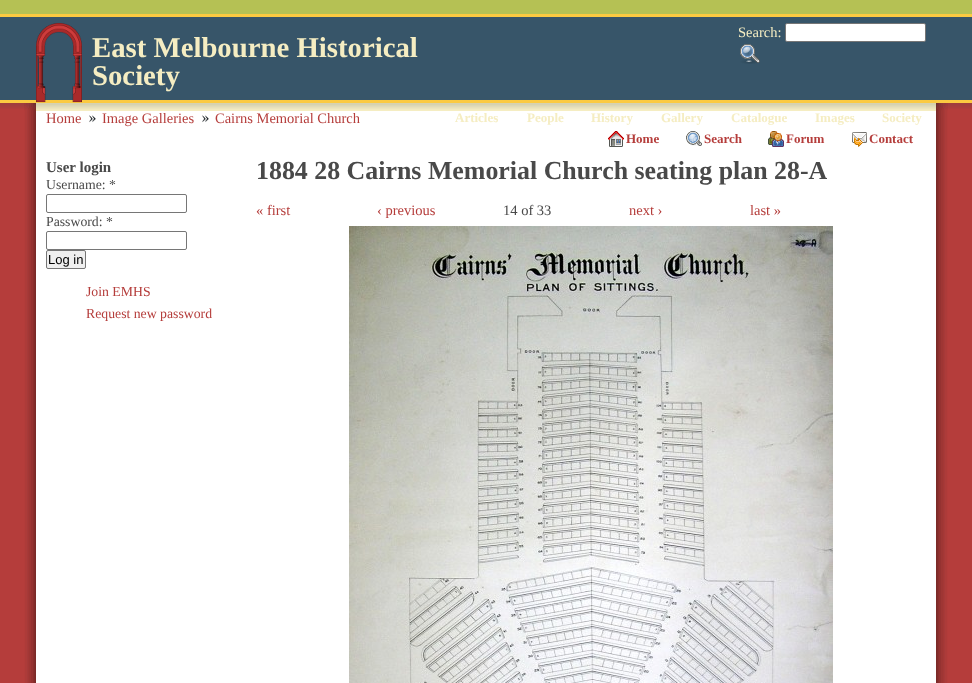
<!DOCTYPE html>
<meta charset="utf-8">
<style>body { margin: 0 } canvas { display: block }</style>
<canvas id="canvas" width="972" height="683"></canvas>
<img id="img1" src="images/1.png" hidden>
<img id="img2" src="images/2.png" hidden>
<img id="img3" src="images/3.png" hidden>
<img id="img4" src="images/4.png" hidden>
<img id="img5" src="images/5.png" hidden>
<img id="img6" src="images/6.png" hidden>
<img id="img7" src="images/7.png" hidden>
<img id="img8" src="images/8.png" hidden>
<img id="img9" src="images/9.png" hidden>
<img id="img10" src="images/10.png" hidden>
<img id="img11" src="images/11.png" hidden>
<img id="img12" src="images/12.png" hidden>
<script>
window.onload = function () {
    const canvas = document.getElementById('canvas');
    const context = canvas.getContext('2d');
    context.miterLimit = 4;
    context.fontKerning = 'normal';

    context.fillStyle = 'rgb(181, 193, 84)';
    context.fillRect(0, 0, 972, 683);
    context.fillStyle = 'rgb(55, 85, 105)';
    context.fillRect(0, 17, 972, 83);
    context.fillStyle = 'rgb(251, 202, 65)';
    context.fillRect(0, 14, 972, 3);
    context.fillRect(0, 100, 972, 3);
    context.drawImage(document.getElementById('img1'), 36, 23, 46, 80);
    context.fillStyle = 'rgb(255, 255, 255)';
    context.beginPath();
    context.roundRect(785.5, 23.5, 140, 18, 1.5);
    context.fill();
    context.strokeStyle = 'rgb(118, 118, 118)';
    context.stroke();
    context.drawImage(document.getElementById('img2'), 740, 44, 20, 20);
    context.fillStyle = 'rgb(181, 61, 59)';
    context.fillRect(0, 109, 972, 574);
    context.drawImage(document.getElementById('img3'), 0, 103, 972, 6);
    context.drawImage(document.getElementById('img4'), 936, 103, 12, 580);
    context.drawImage(document.getElementById('img5'), 24, 103, 12, 580);
    context.fillStyle = 'rgb(255, 255, 255)';
    context.fillRect(36, 111, 900, 572);
    context.drawImage(document.getElementById('img6'), 36, 103, 900, 8);
    context.drawImage(document.getElementById('img7'), 89, 115, 7, 8);
    context.drawImage(document.getElementById('img7'), 202, 115, 7, 8);
    context.drawImage(document.getElementById('img8'), 608, 131, 16, 16);
    context.drawImage(document.getElementById('img9'), 686, 131, 16, 15);
    context.drawImage(document.getElementById('img10'), 768, 131, 16, 16);
    context.drawImage(document.getElementById('img11'), 852, 132, 15, 15);
    context.beginPath();
    context.roundRect(46.5, 194.5, 140, 18, 1.5);
    context.stroke();
    context.beginPath();
    context.roundRect(46.5, 231.5, 140, 18, 1.5);
    context.stroke();
    context.fillStyle = 'rgb(239, 239, 239)';
    context.beginPath();
    context.roundRect(46.5, 250.5, 39, 18, 1.5);
    context.fill();
    context.stroke();
    context.drawImage(document.getElementById('img12'), 349, 226, 484, 457);
    context.font = '14.5px Liberation Serif';
    context.fillStyle = 'rgb(245, 237, 194)';
    context.fillText('Search:', 738, 37);
    context.font = 'bold 28.75px Liberation Serif';
    context.fillText('East Melbourne Historical', 92, 57);
    context.fillText('Society', 92, 85);
    context.font = 'bold 13px Liberation Serif';
    context.fillText('Articles', 455, 122);
    context.fillText('People', 527, 122);
    context.fillText('History', 591, 122);
    context.fillText('Gallery', 661, 122);
    context.fillText('Catalogue', 731, 122);
    context.fillText('Images', 815, 122);
    context.fillText('Society', 882, 122);
    context.font = '14.5px Liberation Serif';
    context.fillStyle = 'rgb(181, 61, 59)';
    context.fillText('Home', 46, 123);
    context.fillText('Image Galleries', 102, 123);
    context.fillText('Cairns Memorial Church', 215, 123);
    context.font = 'bold 13px Liberation Serif';
    context.fillText('Home', 626, 143);
    context.fillText('Search', 704, 143);
    context.fillText('Forum', 786, 143);
    context.fillText('Contact', 869, 143);
    context.font = 'bold 15px Liberation Serif';
    context.fillStyle = 'rgb(73, 73, 73)';
    context.fillText('User login', 46, 172);
    context.font = '13.75px Liberation Serif';
    context.fillText('Username: *', 46, 189);
    context.fillText('Password: *', 46, 226);
    context.font = '13px Liberation Sans';
    context.fillStyle = 'rgb(0, 0, 0)';
    context.fillText('Log in', 48, 264);
    context.font = '13.75px Liberation Serif';
    context.fillStyle = 'rgb(181, 61, 59)';
    context.fillText('Join EMHS', 86, 296);
    context.fillText('Request new password', 86, 318);
    context.font = 'bold 25.9px Liberation Serif';
    context.fillStyle = 'rgb(73, 73, 73)';
    context.fillText('1884 28 Cairns Memorial Church seating plan 28-A', 256, 179);
    context.font = '14.5px Liberation Serif';
    context.fillStyle = 'rgb(181, 61, 59)';
    context.fillText('« first', 256, 215);
    context.fillText('‹ previous', 377, 215);
    context.fillStyle = 'rgb(73, 73, 73)';
    context.fillText('14 of 33', 503, 215);
    context.fillStyle = 'rgb(181, 61, 59)';
    context.fillText('next ›', 629, 215);
    context.fillText('last »', 750, 215);
};
</script>
